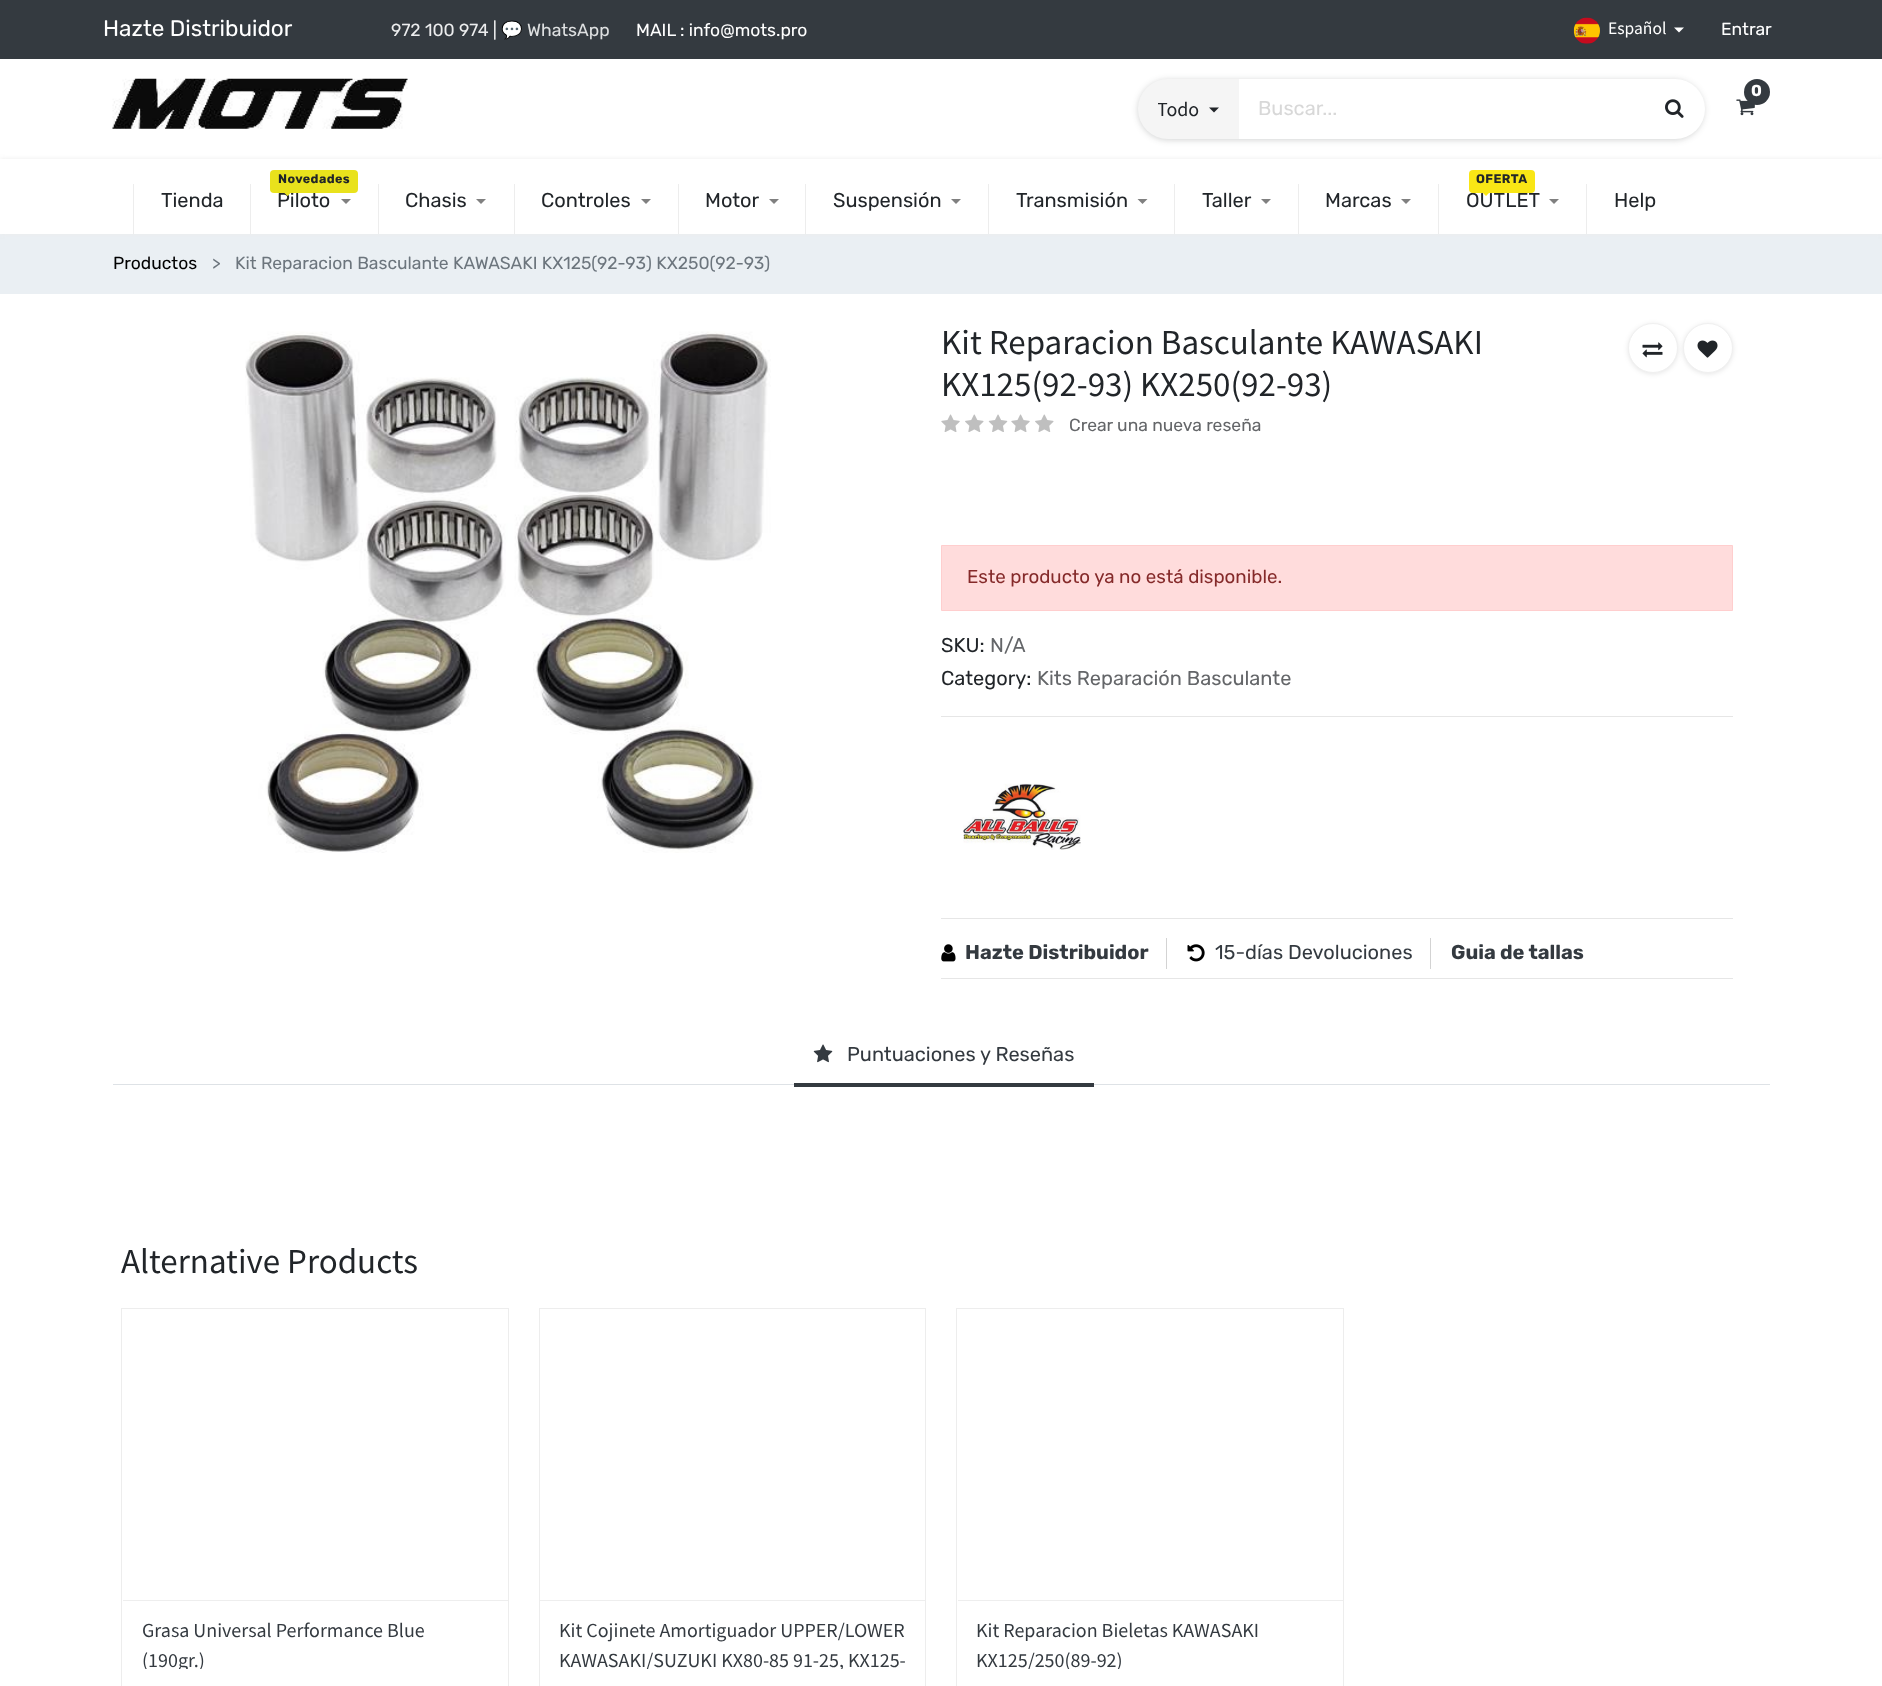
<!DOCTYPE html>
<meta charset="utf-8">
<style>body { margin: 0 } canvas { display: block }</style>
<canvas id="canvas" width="1882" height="1686"></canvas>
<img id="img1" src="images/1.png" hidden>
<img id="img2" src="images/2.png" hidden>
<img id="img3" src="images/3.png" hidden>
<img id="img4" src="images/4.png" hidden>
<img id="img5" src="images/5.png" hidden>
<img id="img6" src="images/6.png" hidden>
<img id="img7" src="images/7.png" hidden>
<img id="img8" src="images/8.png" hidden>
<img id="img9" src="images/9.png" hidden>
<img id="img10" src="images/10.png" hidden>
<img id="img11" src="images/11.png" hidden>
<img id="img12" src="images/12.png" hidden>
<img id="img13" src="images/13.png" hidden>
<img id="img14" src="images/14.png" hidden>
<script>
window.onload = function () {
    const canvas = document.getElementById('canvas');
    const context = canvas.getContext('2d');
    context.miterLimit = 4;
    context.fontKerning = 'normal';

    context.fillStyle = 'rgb(255, 255, 255)';
    context.fillRect(0, 0, 1882, 1686);
    context.fillStyle = 'rgb(52, 58, 64)';
    context.fillRect(0, 0, 1882, 59);
    context.drawImage(document.getElementById('img1'), 1573, 17, 27, 27);
    context.fillStyle = 'rgb(255, 255, 255)';
    context.beginPath();
    context.moveTo(1674, 27.5);
    context.lineTo(1684, 27.5);
    context.lineTo(1679, 32.5);
    context.closePath();
    context.fill();
    context.drawImage(document.getElementById('img2'), 112, 78, 296, 51);
    context.drawImage(document.getElementById('img3'), 1736, 99, 19, 17);
    context.fillStyle = 'rgb(52, 58, 64)';
    context.beginPath();
    context.arc(1757, 92, 13, 0, 2 * Math.PI);
    context.fill();
    context.fillStyle = 'rgba(32, 33, 36, 0.2)';
    context.filter = 'blur(3px)';
    context.beginPath();
    context.roundRect(1138, 80, 566, 60, 30);
    context.fill();
    context.filter = 'none';
    context.fillStyle = 'rgb(245, 245, 245)';
    context.beginPath();
    context.roundRect(1138, 79, 101, 60, [30, 0, 0, 30]);
    context.fill();
    context.fillStyle = 'rgb(33, 37, 41)';
    context.beginPath();
    context.moveTo(1209, 107.5);
    context.lineTo(1219, 107.5);
    context.lineTo(1214, 112.5);
    context.closePath();
    context.fill();
    context.fillStyle = 'rgb(255, 255, 255)';
    context.beginPath();
    context.roundRect(1239, 79, 466, 60, [0, 30, 30, 0]);
    context.fill();
    context.drawImage(document.getElementById('img4'), 1665, 99, 19, 19);
    context.fillStyle = 'rgb(234, 239, 243)';
    context.fillRect(0, 234, 1882, 60);
    context.fillStyle = 'rgb(237, 237, 237)';
    context.filter = 'blur(2.5px)';
    context.beginPath();
    context.rect(0, 159, 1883, 75);
    context.fill();
    context.filter = 'none';
    context.fillStyle = 'rgb(255, 255, 255)';
    context.fillRect(0, 159, 1882, 75);
    context.fillStyle = 'rgb(237, 237, 237)';
    context.fillRect(133, 184, 1, 50);
    context.fillRect(250, 184, 1, 50);
    context.fillStyle = 'rgb(128, 128, 128)';
    context.beginPath();
    context.moveTo(341, 199);
    context.lineTo(351, 199);
    context.lineTo(346, 204);
    context.closePath();
    context.fill();
    context.fillStyle = 'rgb(237, 237, 237)';
    context.fillRect(378, 184, 1, 50);
    context.fillStyle = 'rgb(128, 128, 128)';
    context.beginPath();
    context.moveTo(476, 199);
    context.lineTo(486, 199);
    context.lineTo(481, 204);
    context.closePath();
    context.fill();
    context.fillStyle = 'rgb(237, 237, 237)';
    context.fillRect(514, 184, 1, 50);
    context.fillStyle = 'rgb(128, 128, 128)';
    context.beginPath();
    context.moveTo(641, 199);
    context.lineTo(651, 199);
    context.lineTo(646, 204);
    context.closePath();
    context.fill();
    context.fillStyle = 'rgb(237, 237, 237)';
    context.fillRect(678, 184, 1, 50);
    context.fillStyle = 'rgb(128, 128, 128)';
    context.beginPath();
    context.moveTo(769, 199);
    context.lineTo(779, 199);
    context.lineTo(774, 204);
    context.closePath();
    context.fill();
    context.fillStyle = 'rgb(237, 237, 237)';
    context.fillRect(805, 184, 1, 50);
    context.fillStyle = 'rgb(128, 128, 128)';
    context.beginPath();
    context.moveTo(951, 199);
    context.lineTo(961, 199);
    context.lineTo(956, 204);
    context.closePath();
    context.fill();
    context.fillStyle = 'rgb(237, 237, 237)';
    context.fillRect(988, 184, 1, 50);
    context.fillStyle = 'rgb(128, 128, 128)';
    context.beginPath();
    context.moveTo(1137.5, 199);
    context.lineTo(1147.5, 199);
    context.lineTo(1142.5, 204);
    context.closePath();
    context.fill();
    context.fillStyle = 'rgb(237, 237, 237)';
    context.fillRect(1174, 184, 1, 50);
    context.fillStyle = 'rgb(128, 128, 128)';
    context.beginPath();
    context.moveTo(1261, 199);
    context.lineTo(1271, 199);
    context.lineTo(1266, 204);
    context.closePath();
    context.fill();
    context.fillStyle = 'rgb(237, 237, 237)';
    context.fillRect(1298, 184, 1, 50);
    context.fillStyle = 'rgb(128, 128, 128)';
    context.beginPath();
    context.moveTo(1401, 199);
    context.lineTo(1411, 199);
    context.lineTo(1406, 204);
    context.closePath();
    context.fill();
    context.fillStyle = 'rgb(237, 237, 237)';
    context.fillRect(1438, 184, 1, 50);
    context.fillStyle = 'rgb(128, 128, 128)';
    context.beginPath();
    context.moveTo(1549, 199);
    context.lineTo(1559, 199);
    context.lineTo(1554, 204);
    context.closePath();
    context.fill();
    context.fillStyle = 'rgb(237, 237, 237)';
    context.fillRect(1586, 184, 1, 50);
    context.drawImage(document.getElementById('img5'), 245, 331, 526, 522);
    context.fillStyle = 'rgba(0, 0, 0, 0.1)';
    context.filter = 'blur(2.5px)';
    context.beginPath();
    context.roundRect(1628, 324, 50, 50, 25);
    context.fill();
    context.filter = 'none';
    context.fillStyle = 'rgb(255, 255, 255)';
    context.beginPath();
    context.arc(1653, 348, 24.5, 0, 2 * Math.PI);
    context.fill();
    context.strokeStyle = 'rgb(240, 240, 240)';
    context.stroke();
    context.drawImage(document.getElementById('img6'), 1642, 342, 21, 16);
    context.fillStyle = 'rgba(0, 0, 0, 0.1)';
    context.filter = 'blur(2.5px)';
    context.beginPath();
    context.roundRect(1683, 324, 50, 50, 25);
    context.fill();
    context.filter = 'none';
    context.fillStyle = 'rgb(255, 255, 255)';
    context.beginPath();
    context.arc(1708, 348, 24.5, 0, 2 * Math.PI);
    context.fill();
    context.stroke();
    context.drawImage(document.getElementById('img7'), 1697, 340, 21, 18);
    context.drawImage(document.getElementById('img8'), 941, 414, 19, 18);
    context.drawImage(document.getElementById('img9'), 965, 414, 19, 18);
    context.drawImage(document.getElementById('img10'), 988, 414, 20, 18);
    context.drawImage(document.getElementById('img8'), 1011, 414, 19, 18);
    context.drawImage(document.getElementById('img9'), 1035, 414, 19, 18);
    context.fillStyle = 'rgb(255, 220, 220)';
    context.beginPath();
    context.rect(941.5, 545.5, 791, 65);
    context.fill();
    context.strokeStyle = 'rgb(255, 206, 206)';
    context.stroke();
    context.fillStyle = 'rgb(230, 230, 230)';
    context.fillRect(941, 716, 792, 1);
    context.drawImage(document.getElementById('img11'), 963, 783, 118, 67);
    context.fillRect(941, 918, 792, 1);
    context.fillStyle = 'rgb(211, 211, 211)';
    context.fillRect(1166, 938, 1, 31);
    context.drawImage(document.getElementById('img12'), 941, 944, 15, 18);
    context.fillRect(1430, 938, 1, 31);
    context.drawImage(document.getElementById('img13'), 1187, 944, 18, 18);
    context.fillStyle = 'rgb(230, 230, 230)';
    context.fillRect(941, 978, 792, 1);
    context.fillStyle = 'rgb(222, 226, 230)';
    context.fillRect(113, 1084, 1657, 1);
    context.fillStyle = 'rgb(52, 58, 64)';
    context.fillRect(794, 1083, 300, 4);
    context.drawImage(document.getElementById('img14'), 813, 1044, 20, 19);
    context.strokeStyle = 'rgb(237, 237, 237)';
    context.strokeRect(121.5, 1308.5, 387, 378);
    context.fillStyle = 'rgb(238, 238, 238)';
    context.fillRect(123, 1600, 385, 1);
    context.strokeRect(539.5, 1308.5, 386, 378);
    context.fillRect(540, 1600, 385, 1);
    context.strokeRect(956.5, 1308.5, 387, 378);
    context.fillRect(958, 1600, 385, 1);
    context.font = '22.5px Rubik';
    context.fillStyle = 'rgb(255, 255, 255)';
    context.fillText('Hazte Distribuidor', 103, 36);
    context.font = '17.5px Rubik';
    context.fillStyle = 'rgb(236, 237, 238)';
    context.fillText('972 100 974 |', 391, 36);
    context.font = '17.5px Noto Color Emoji';
    context.fillStyle = 'rgb(0, 255, 0)';
    context.fillText('💬', 501, 36);
    context.font = '17.5px Rubik';
    context.fillStyle = 'rgb(222, 224, 225)';
    context.fillText('WhatsApp', 527, 36);
    context.fillStyle = 'rgb(255, 255, 255)';
    context.fillText('MAIL : info@mots.pro', 636, 36);
    context.font = '17.5px Source Sans Pro';
    context.fillText('Español', 1608, 34);
    context.font = '17.5px Rubik';
    context.fillText('Entrar', 1721, 35);
    context.font = 'bold 16px Rubik';
    context.fillText('0', 1751, 96);
    context.save();
    context.beginPath();
    context.rect(1158, 94, 41, 32);
    context.clip();
    context.font = '20px Source Sans Pro';
    context.fillStyle = 'rgb(33, 37, 41)';
    context.fillText('Todo', 1157, 116);
    context.restore();
    context.font = '20px Rubik';
    context.fillStyle = 'rgb(216, 216, 216)';
    context.fillText('Buscar...', 1258, 115);
    context.fillStyle = 'rgb(33, 37, 41)';
    context.fillText('Tienda', 161, 207);
    context.fillText('Piloto', 277, 207);
    context.fillStyle = 'rgb(233, 226, 28)';
    context.beginPath();
    context.roundRect(270, 170, 88, 23, 4);
    context.fill();
    context.beginPath();
    context.moveTo(282.5, 191);
    context.lineTo(292.5, 191);
    context.lineTo(287.5, 196);
    context.closePath();
    context.fill();
    context.letterSpacing = '0.4px';
    context.font = 'bold 12.5px Rubik';
    context.fillStyle = 'rgb(33, 37, 41)';
    context.fillText('Novedades', 278, 183);
    context.letterSpacing = '0px';
    context.font = '20px Rubik';
    context.fillText('Chasis', 405, 207);
    context.fillText('Controles', 541, 207);
    context.fillText('Motor', 705, 207);
    context.fillText('Suspensión', 833, 207);
    context.fillText('Transmisión', 1016, 207);
    context.fillText('Taller', 1202, 207);
    context.fillText('Marcas', 1325, 207);
    context.fillText('OUTLET', 1466, 207);
    context.fillStyle = 'rgb(249, 230, 21)';
    context.beginPath();
    context.roundRect(1469, 170, 66, 23, 4);
    context.fill();
    context.beginPath();
    context.moveTo(1481, 191);
    context.lineTo(1491, 191);
    context.lineTo(1486, 196);
    context.closePath();
    context.fill();
    context.letterSpacing = '0.4px';
    context.font = 'bold 12.5px Rubik';
    context.fillStyle = 'rgb(33, 37, 41)';
    context.fillText('OFERTA', 1476, 183);
    context.letterSpacing = '0px';
    context.font = '20px Rubik';
    context.fillText('Help', 1614, 207);
    context.font = '17.5px Rubik';
    context.fillStyle = 'rgb(0, 0, 0)';
    context.fillText('Productos', 113, 269);
    context.fillStyle = 'rgb(108, 117, 125)';
    context.fillText('>', 212, 269);
    context.fillText('Kit Reparacion Basculante KAWASAKI KX125(92-93) KX250(92-93)', 235, 269);
    context.font = '35px Source Sans Pro';
    context.fillStyle = 'rgb(33, 37, 41)';
    context.fillText('Kit Reparacion Basculante KAWASAKI', 941, 354);
    context.fillText('KX125(92-93) KX250(92-93)', 941, 396);
    context.font = '17.5px Rubik';
    context.fillStyle = 'rgb(100, 102, 105)';
    context.fillText('Crear una nueva reseña', 1069, 431);
    context.font = '18.75px Rubik';
    context.fillStyle = 'rgb(133, 42, 42)';
    context.fillText('Este producto ya no está disponible.', 967, 583);
    context.font = '20px Rubik';
    context.fillStyle = 'rgb(33, 37, 41)';
    context.fillText('SKU:', 941, 652);
    context.fillStyle = 'rgb(100, 102, 105)';
    context.fillText('N/A', 990, 652);
    context.fillStyle = 'rgb(33, 37, 41)';
    context.fillText('Category:', 941, 685);
    context.fillStyle = 'rgb(100, 102, 105)';
    context.fillText('Kits Reparación Basculante', 1037, 685);
    context.font = 'bold 20px Rubik';
    context.fillStyle = 'rgb(52, 58, 64)';
    context.fillText('Hazte Distribuidor', 965, 959);
    context.font = '20px Rubik';
    context.fillText('15-días Devoluciones', 1215, 959);
    context.font = 'bold 20px Rubik';
    context.fillText('Guia de tallas', 1451, 959);
    context.font = '20px Rubik';
    context.fillText('Puntuaciones y Reseñas', 847, 1061);
    context.font = '35px Source Sans Pro';
    context.fillStyle = 'rgb(33, 37, 41)';
    context.fillText('Alternative Products', 121, 1273);
    context.font = '20px Source Sans Pro';
    context.fillStyle = 'rgb(52, 58, 64)';
    context.fillText('Grasa Universal Performance Blue', 142, 1637);
    context.save();
    context.beginPath();
    context.rect(141, 1614, 348, 55);
    context.clip();
    context.fillText('(190gr.)', 142, 1667);
    context.restore();
    context.fillText('Kit Cojinete Amortiguador UPPER/LOWER', 559, 1637);
    context.save();
    context.beginPath();
    context.rect(559, 1614, 347, 55);
    context.clip();
    context.fillText('KAWASAKI/SUZUKI KX80-85 91-25, KX125-', 559, 1667);
    context.restore();
    context.fillText('Kit Reparacion Bieletas KAWASAKI', 976, 1637);
    context.save();
    context.beginPath();
    context.rect(976, 1614, 348, 55);
    context.clip();
    context.fillText('KX125/250(89-92)', 976, 1667);
    context.restore();
};
</script>
